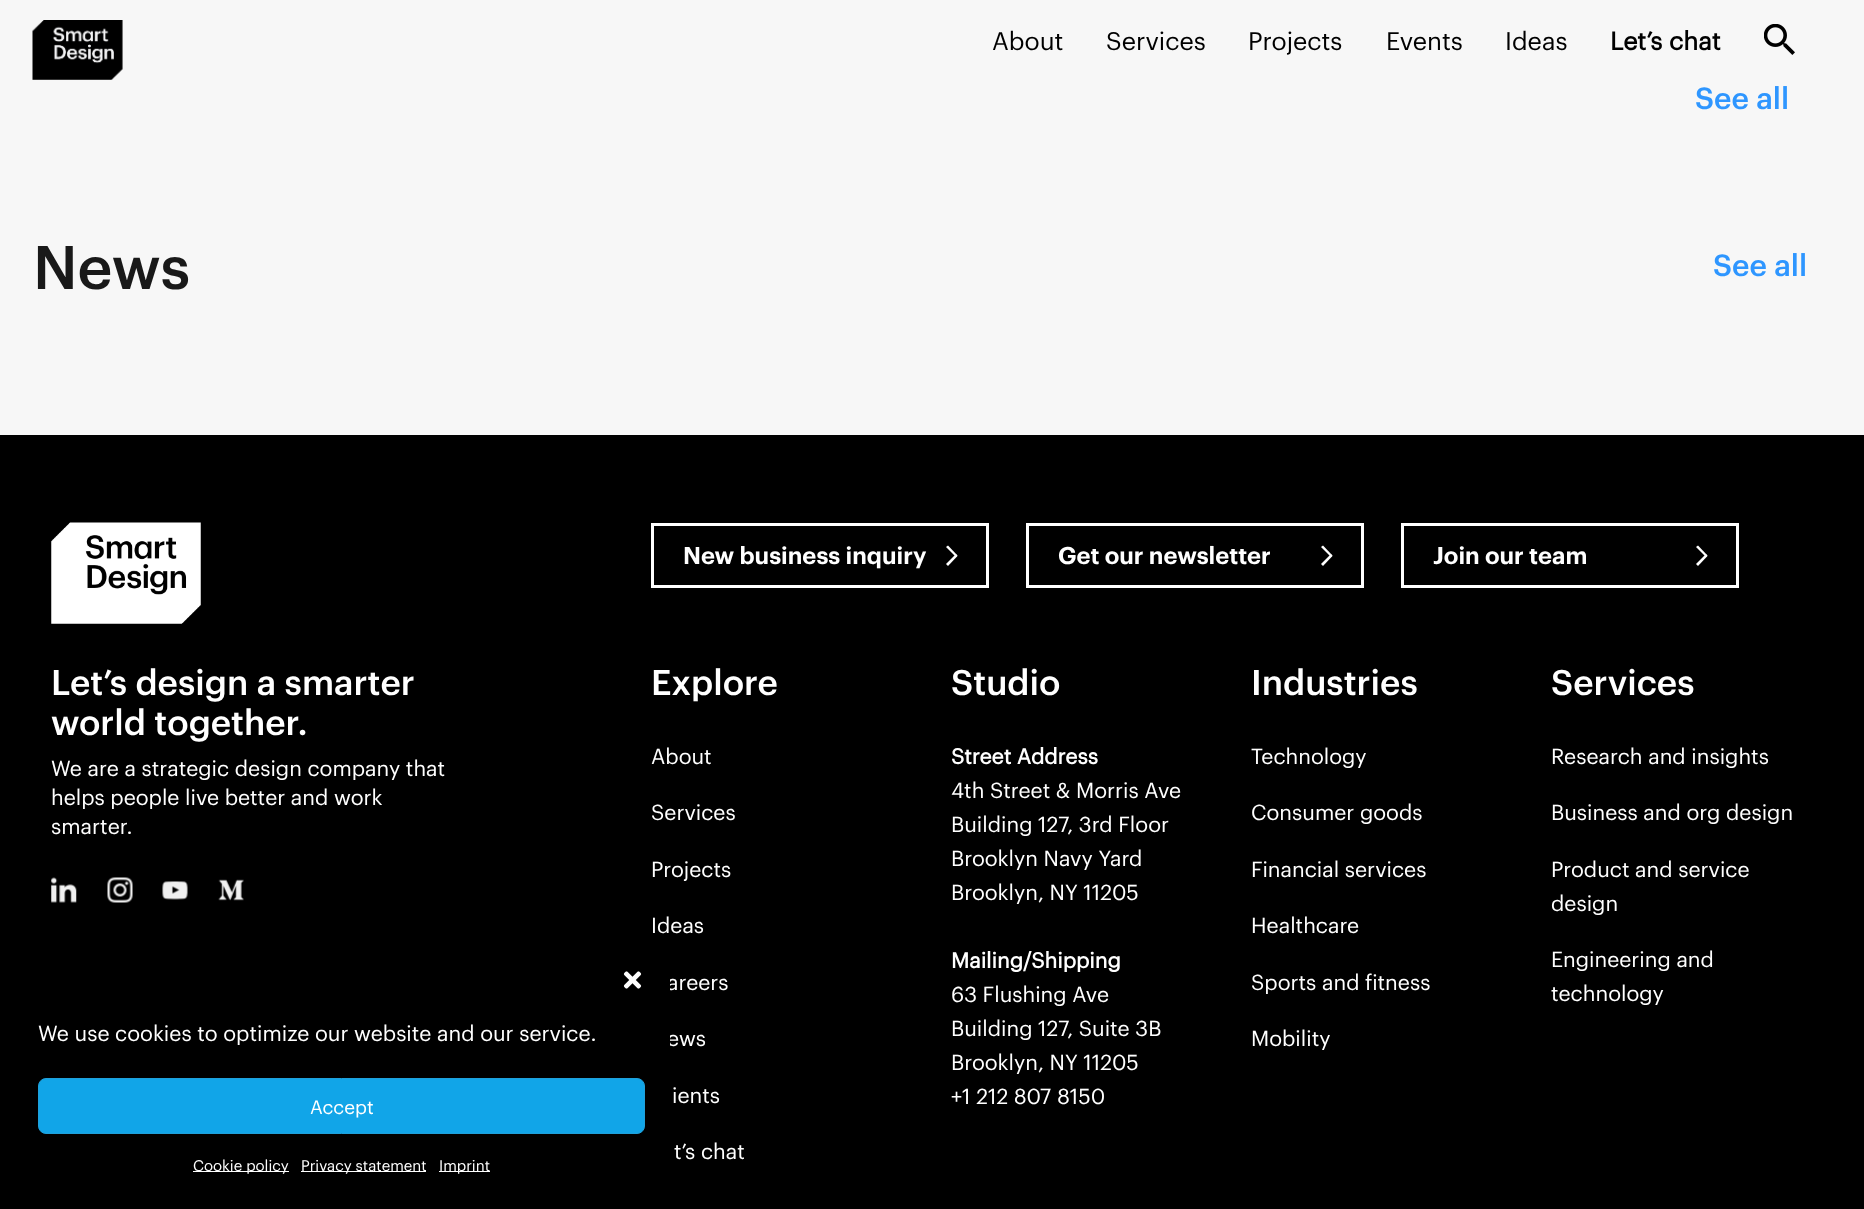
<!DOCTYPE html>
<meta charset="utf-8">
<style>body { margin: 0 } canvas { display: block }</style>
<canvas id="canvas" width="1864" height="1209"></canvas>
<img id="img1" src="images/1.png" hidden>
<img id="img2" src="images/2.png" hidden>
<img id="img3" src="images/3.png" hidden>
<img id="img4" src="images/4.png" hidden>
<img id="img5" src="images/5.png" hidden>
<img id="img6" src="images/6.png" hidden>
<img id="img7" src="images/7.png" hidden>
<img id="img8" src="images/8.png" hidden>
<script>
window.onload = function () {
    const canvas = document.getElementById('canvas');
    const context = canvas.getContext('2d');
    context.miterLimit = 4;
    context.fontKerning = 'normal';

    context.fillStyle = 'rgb(247, 247, 247)';
    context.fillRect(0, 0, 1864, 1209);
    context.drawImage(document.getElementById('img1'), 32, 20, 91, 60);
    context.drawImage(document.getElementById('img2'), 1764, 24, 31, 31);
    context.fillStyle = 'rgb(0, 0, 0)';
    context.fillRect(0, 435, 1864, 774);
    context.drawImage(document.getElementById('img3'), 51, 522, 150, 102);
    context.strokeStyle = 'rgb(255, 255, 255)';
    context.lineWidth = 3;
    context.strokeRect(652.5, 524.5, 335, 62);
    context.fillStyle = 'rgb(255, 255, 255)';
    context.beginPath();
    context.moveTo(948, 545.5);
    context.lineTo(957.5, 555.5);
    context.lineTo(956, 557);
    context.lineTo(946, 547);
    context.closePath();
    context.fill();
    context.beginPath();
    context.moveTo(946, 564);
    context.lineTo(956, 554);
    context.lineTo(957.5, 556);
    context.lineTo(948, 566);
    context.closePath();
    context.fill();
    context.strokeRect(1027.5, 524.5, 335, 62);
    context.beginPath();
    context.moveTo(1323, 545.5);
    context.lineTo(1332.5, 555.5);
    context.lineTo(1331, 557);
    context.lineTo(1321, 547);
    context.closePath();
    context.fill();
    context.beginPath();
    context.moveTo(1321, 564);
    context.lineTo(1331, 554);
    context.lineTo(1332.5, 556);
    context.lineTo(1323, 566);
    context.closePath();
    context.fill();
    context.strokeRect(1402.5, 524.5, 335, 62);
    context.beginPath();
    context.moveTo(1698, 545.5);
    context.lineTo(1707.5, 555.5);
    context.lineTo(1706, 557);
    context.lineTo(1696, 547);
    context.closePath();
    context.fill();
    context.beginPath();
    context.moveTo(1696, 564);
    context.lineTo(1706, 554);
    context.lineTo(1707.5, 556);
    context.lineTo(1698, 566);
    context.closePath();
    context.fill();
    context.drawImage(document.getElementById('img4'), 51, 877, 26, 26);
    context.drawImage(document.getElementById('img5'), 107, 877, 26, 26);
    context.drawImage(document.getElementById('img6'), 162, 881, 26, 19);
    context.drawImage(document.getElementById('img7'), 218, 879, 26, 22);
    context.fillStyle = 'rgba(0, 0, 0, 0.23)';
    context.filter = 'blur(4px)';
    context.beginPath();
    context.roundRect(13, 956, 657, 249, 15);
    context.fill();
    context.filter = 'none';
    context.fillStyle = 'rgba(0, 0, 0, 0.19)';
    context.filter = 'blur(12.5px)';
    context.beginPath();
    context.roundRect(13, 961, 657, 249, 15);
    context.fill();
    context.filter = 'none';
    context.font = '25px Graphik';
    context.fillStyle = 'rgb(0, 0, 0)';
    context.fillText('About', 992, 50);
    context.fillText('Services', 1106, 50);
    context.fillText('Projects', 1248, 50);
    context.fillText('Events', 1386, 50);
    context.fillText('Ideas', 1505, 50);
    context.font = 'bold 25px Graphik';
    context.fillText('Let’s chat', 1610, 50);
    context.font = '500 30px Graphik';
    context.fillStyle = 'rgb(46, 150, 255)';
    context.fillText('See all', 1695, 109);
    context.font = '500 60px Graphik';
    context.fillStyle = 'rgb(25, 25, 25)';
    context.fillText('News', 33, 289);
    context.font = '500 30px Graphik';
    context.fillStyle = 'rgb(46, 150, 255)';
    context.fillText('See all', 1713, 276);
    context.font = '600 23.75px Graphik';
    context.fillStyle = 'rgb(255, 255, 255)';
    context.fillText('New business inquiry', 683, 564);
    context.fillText('Get our newsletter', 1058, 564);
    context.fillText('Join our team', 1433, 564);
    context.font = '500 35px Graphik';
    context.fillText('Let’s design a smarter', 51, 695);
    context.fillText('world together.', 51, 735);
    context.font = '21.25px Graphik';
    context.fillText('We are a strategic design company that', 51, 776);
    context.fillText('helps people live better and work', 51, 805);
    context.fillText('smarter.', 51, 834);
    context.font = '500 35px Graphik';
    context.fillText('Explore', 651, 695);
    context.font = '21.25px Graphik';
    context.fillText('About', 651, 764);
    context.fillText('Services', 651, 820);
    context.fillText('Projects', 651, 877);
    context.fillText('Ideas', 651, 933);
    context.fillText('areers', 667, 990);
    context.fillText('ews', 667, 1046);
    context.fillText('ients', 672, 1103);
    context.fillText('t’s chat', 674, 1159);
    context.font = '500 35px Graphik';
    context.fillText('Studio', 951, 695);
    context.font = 'bold 21.25px Graphik';
    context.fillText('Street Address', 951, 764);
    context.font = '21.25px Graphik';
    context.fillText('4th Street & Morris Ave', 951, 798);
    context.fillText('Building 127, 3rd Floor', 951, 832);
    context.fillText('Brooklyn Navy Yard', 951, 866);
    context.fillText('Brooklyn, NY 11205', 951, 900);
    context.font = 'bold 21.25px Graphik';
    context.fillText('Mailing/Shipping', 951, 968);
    context.font = '21.25px Graphik';
    context.fillText('63 Flushing Ave', 951, 1002);
    context.fillText('Building 127, Suite 3B', 951, 1036);
    context.fillText('Brooklyn, NY 11205', 951, 1070);
    context.fillText('+1 212 807 8150', 951, 1104);
    context.font = '500 35px Graphik';
    context.fillText('Industries', 1251, 695);
    context.font = '21.25px Graphik';
    context.fillText('Technology', 1251, 764);
    context.fillText('Consumer goods', 1251, 820);
    context.fillText('Financial services', 1251, 877);
    context.fillText('Healthcare', 1251, 933);
    context.fillText('Sports and fitness', 1251, 990);
    context.fillText('Mobility', 1251, 1046);
    context.font = '500 35px Graphik';
    context.fillText('Services', 1551, 695);
    context.font = '21.25px Graphik';
    context.fillText('Research and insights', 1551, 764);
    context.fillText('Business and org design', 1551, 820);
    context.fillText('Product and service', 1551, 877);
    context.fillText('design', 1551, 911);
    context.fillText('Engineering and', 1551, 967);
    context.fillText('technology', 1551, 1001);
    context.fillStyle = 'rgb(0, 0, 0)';
    context.beginPath();
    context.roundRect(13, 949, 657, 249, 15);
    context.fill();
    context.drawImage(document.getElementById('img8'), 623, 971, 19, 18);
    context.fillStyle = 'rgb(255, 255, 255)';
    context.fillText('We use cookies to optimize our website and our service.', 38, 1041);
    context.fillStyle = 'rgb(17, 165, 232)';
    context.beginPath();
    context.roundRect(38.5, 1078.5, 606, 55, 7.5);
    context.fill();
    context.strokeStyle = 'rgb(31, 160, 218)';
    context.lineWidth = 1;
    context.stroke();
    context.font = '19px Graphik';
    context.fillStyle = 'rgb(255, 255, 255)';
    context.fillText('Accept', 310, 1114);
    context.fillRect(193, 1171, 96, 1);
    context.font = '15px Graphik';
    context.fillText('Cookie policy', 193, 1171);
    context.fillRect(301, 1171, 125, 1);
    context.fillText('Privacy statement', 301, 1171);
    context.fillRect(439, 1171, 51, 1);
    context.fillText('Imprint', 439, 1171);
};
</script>
